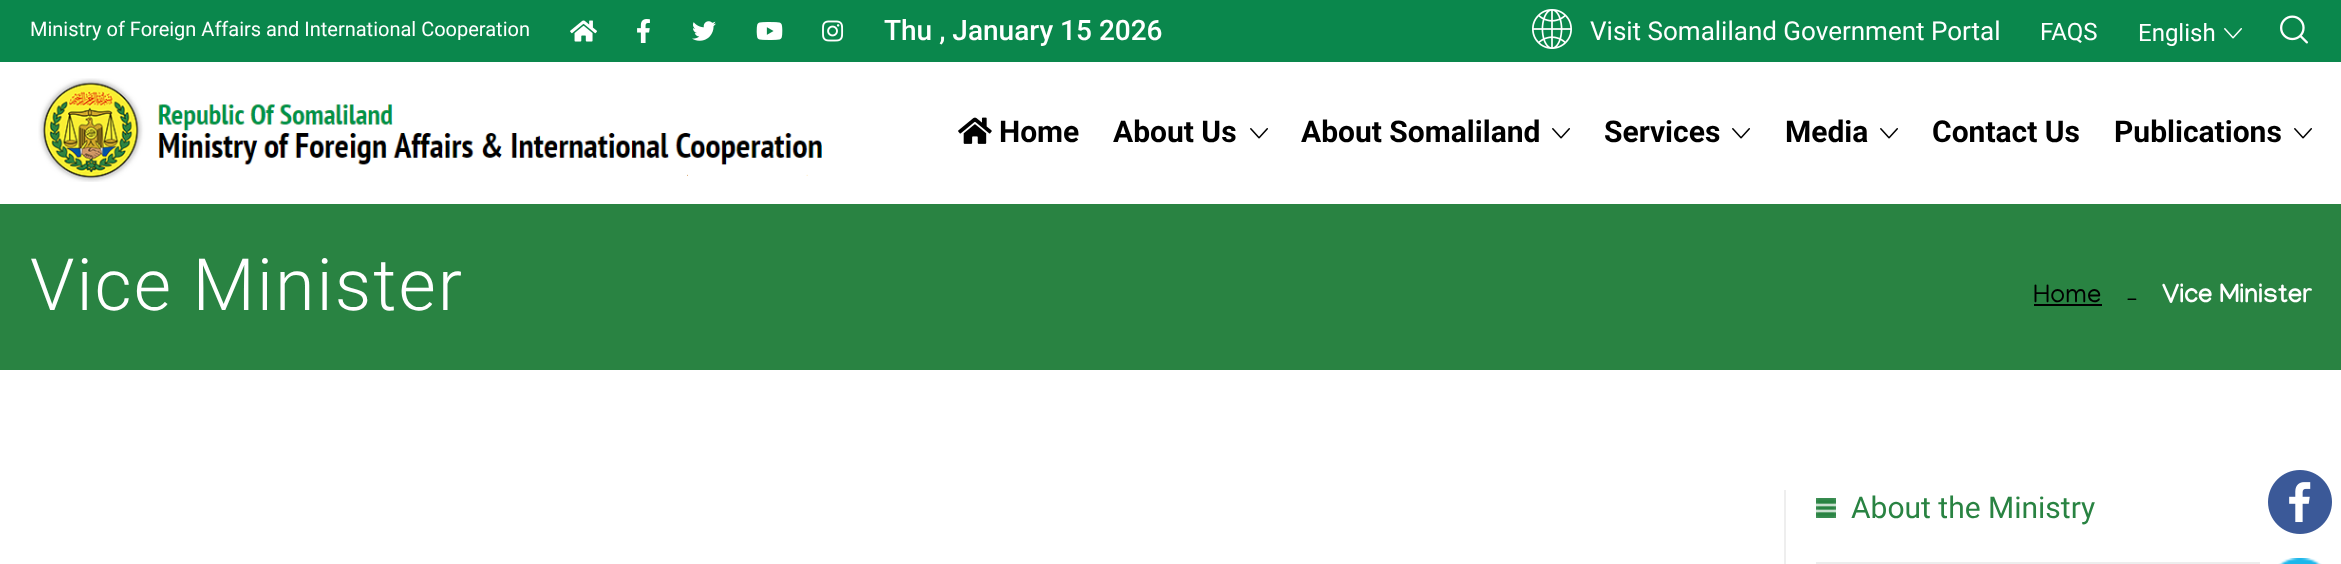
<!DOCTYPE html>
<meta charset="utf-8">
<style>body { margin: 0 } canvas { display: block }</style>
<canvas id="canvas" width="2341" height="564"></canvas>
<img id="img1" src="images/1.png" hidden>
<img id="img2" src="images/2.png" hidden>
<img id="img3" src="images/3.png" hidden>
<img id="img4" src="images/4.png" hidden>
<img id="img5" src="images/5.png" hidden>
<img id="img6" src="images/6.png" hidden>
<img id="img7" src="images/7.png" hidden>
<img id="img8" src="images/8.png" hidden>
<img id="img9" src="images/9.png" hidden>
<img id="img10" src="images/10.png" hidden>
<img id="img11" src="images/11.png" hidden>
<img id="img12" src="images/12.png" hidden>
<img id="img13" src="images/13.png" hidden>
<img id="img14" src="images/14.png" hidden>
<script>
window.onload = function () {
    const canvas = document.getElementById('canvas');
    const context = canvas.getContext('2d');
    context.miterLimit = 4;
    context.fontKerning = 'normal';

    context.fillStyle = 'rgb(255, 255, 255)';
    context.fillRect(0, 0, 2341, 564);
    context.fillStyle = 'rgb(10, 135, 76)';
    context.fillRect(0, 0, 2341, 62);
    context.drawImage(document.getElementById('img1'), 570, 20, 27, 22);
    context.drawImage(document.getElementById('img2'), 637, 19, 13, 24);
    context.drawImage(document.getElementById('img3'), 692, 21, 24, 20);
    context.drawImage(document.getElementById('img4'), 756, 22, 27, 18);
    context.drawImage(document.getElementById('img5'), 822, 20, 22, 22);
    context.drawImage(document.getElementById('img6'), 1532, 9, 40, 40);
    context.drawImage(document.getElementById('img7'), 2224, 28, 18, 11);
    context.drawImage(document.getElementById('img8'), 2280, 15, 28, 29);
    context.drawImage(document.getElementById('img9'), 38, 78, 784, 104);
    context.drawImage(document.getElementById('img10'), 958, 117, 34, 27);
    context.drawImage(document.getElementById('img11'), 1250, 128, 18, 11);
    context.drawImage(document.getElementById('img11'), 1552, 128, 18, 11);
    context.drawImage(document.getElementById('img11'), 1732, 128, 18, 11);
    context.drawImage(document.getElementById('img11'), 1880, 128, 18, 11);
    context.drawImage(document.getElementById('img11'), 2294, 128, 18, 11);
    context.fillStyle = 'rgb(41, 131, 66)';
    context.fillRect(0, 204, 2341, 166);
    context.fillStyle = 'rgb(0, 0, 0)';
    context.fillRect(2034, 304, 68, 2);
    context.fillStyle = 'rgb(238, 238, 238)';
    context.fillRect(1784, 490, 2, 74);
    context.drawImage(document.getElementById('img12'), 1816, 498, 20, 20);
    context.fillStyle = 'rgb(237, 237, 237)';
    context.fillRect(1816, 562, 444, 2);
    context.drawImage(document.getElementById('img13'), 2268, 470, 64, 64);
    context.drawImage(document.getElementById('img14'), 2278, 558, 44, 6);
    context.font = '20px Roboto';
    context.fillStyle = 'rgb(255, 255, 255)';
    context.fillText('Ministry of Foreign Affairs and International Cooperation', 30, 36);
    context.font = '500 28px Roboto';
    context.fillText('Thu , January 15 2026', 884, 40);
    context.font = '26px Roboto';
    context.fillText('Visit Somaliland Government Portal', 1590, 40);
    context.font = '24px Roboto';
    context.fillText('FAQS', 2040, 40);
    context.fillText('English', 2138, 41);
    context.font = 'bold 30px Roboto';
    context.fillStyle = 'rgb(0, 0, 0)';
    context.fillText('Home', 999, 142);
    context.fillText('About Us', 1113, 142);
    context.fillText('About Somaliland', 1301, 142);
    context.fillText('Services', 1604, 142);
    context.fillText('Media', 1785, 142);
    context.fillText('Contact Us', 1932, 142);
    context.fillText('Publications', 2114, 142);
    context.letterSpacing = '2px';
    context.font = '300 72px Roboto';
    context.fillStyle = 'rgb(255, 255, 255)';
    context.fillText('Vice Minister', 30, 310);
    context.letterSpacing = '0px';
    context.font = '26px Manjari';
    context.fillStyle = 'rgb(0, 0, 0)';
    context.fillText('Home', 2033, 302);
    context.font = '20px Manjari';
    context.fillText('_', 2127, 300);
    context.font = 'bold 26px Manjari';
    context.fillStyle = 'rgb(255, 255, 255)';
    context.fillText('Vice Minister', 2162, 302);
    context.font = '30px Roboto';
    context.fillStyle = 'rgb(41, 131, 66)';
    context.fillText('About the Ministry', 1851, 518);
};
</script>
